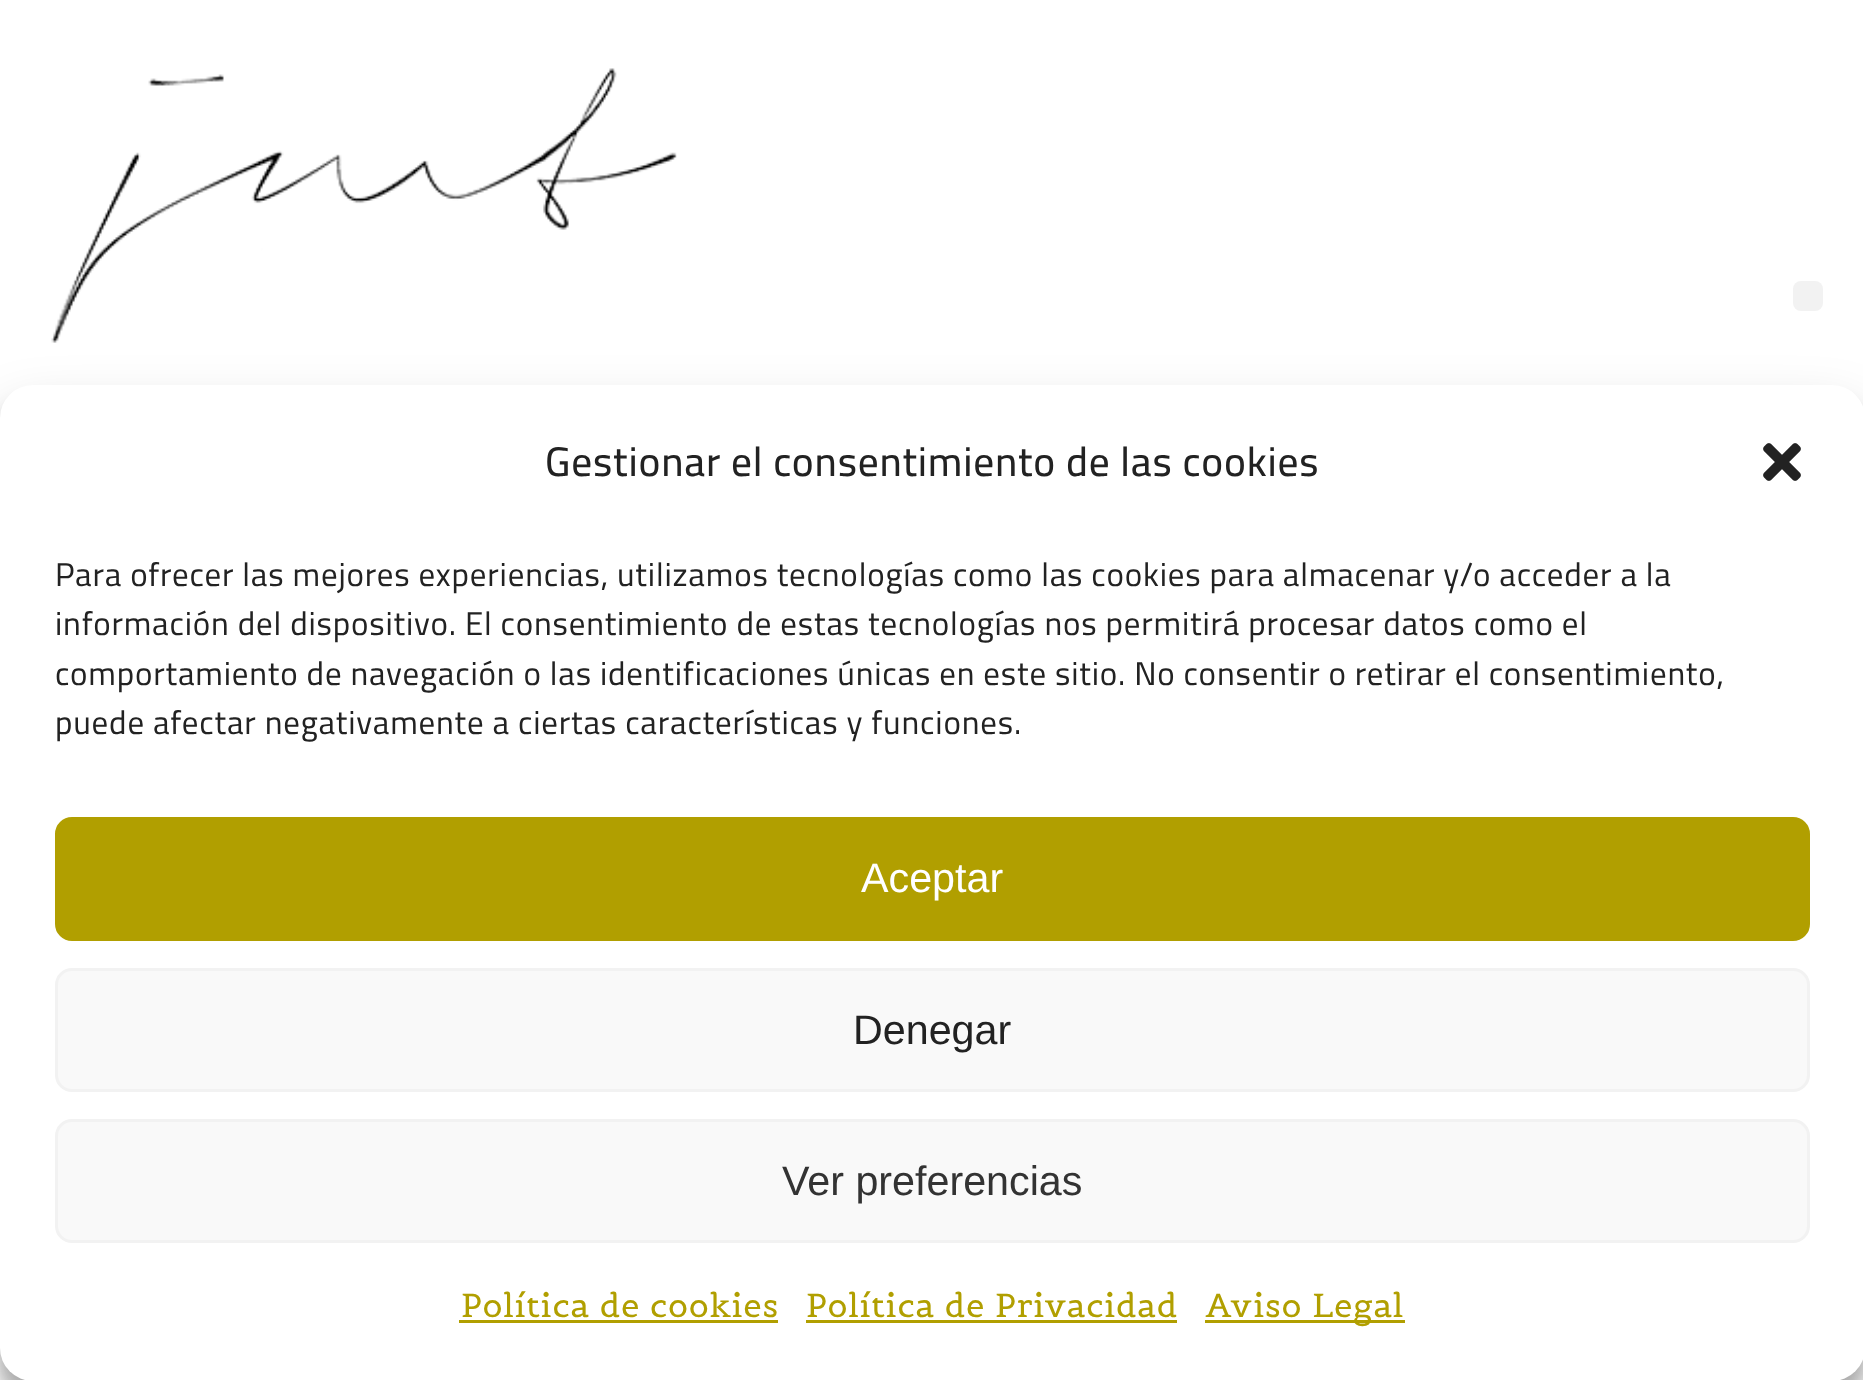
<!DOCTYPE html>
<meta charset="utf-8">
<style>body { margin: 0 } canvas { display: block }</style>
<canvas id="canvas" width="1863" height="1380"></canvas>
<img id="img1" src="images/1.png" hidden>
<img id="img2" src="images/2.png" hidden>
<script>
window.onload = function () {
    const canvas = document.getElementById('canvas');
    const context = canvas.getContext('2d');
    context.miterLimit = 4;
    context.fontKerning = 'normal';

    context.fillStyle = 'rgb(255, 255, 255)';
    context.fillRect(0, 0, 1863, 1380);
    context.drawImage(document.getElementById('img1'), 51, 68, 626, 275);
    context.fillStyle = 'rgb(242, 242, 242)';
    context.beginPath();
    context.roundRect(1793, 281, 30, 30, 8);
    context.fill();
    context.fillStyle = 'rgba(0, 0, 0, 0.23)';
    context.filter = 'blur(8px)';
    context.beginPath();
    context.roundRect(0, 402, 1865, 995, 33);
    context.fill();
    context.filter = 'none';
    context.fillStyle = 'rgba(0, 0, 0, 0.19)';
    context.filter = 'blur(27.5px)';
    context.beginPath();
    context.roundRect(0, 413, 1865, 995, 33);
    context.fill();
    context.filter = 'none';
    context.fillStyle = 'rgb(255, 255, 255)';
    context.beginPath();
    context.roundRect(0, 385, 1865, 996, 33);
    context.fill();
    context.drawImage(document.getElementById('img2'), 1763, 443, 38, 38);
    context.fillStyle = 'rgb(177, 159, 0)';
    context.beginPath();
    context.roundRect(56.5, 818.5, 1752, 121, 15.5);
    context.fill();
    context.strokeStyle = 'rgb(177, 159, 0)';
    context.lineWidth = 3;
    context.stroke();
    context.fillStyle = 'rgb(249, 249, 249)';
    context.beginPath();
    context.roundRect(56.5, 969.5, 1752, 121, 15.5);
    context.fill();
    context.strokeStyle = 'rgb(242, 242, 242)';
    context.stroke();
    context.beginPath();
    context.roundRect(56.5, 1120.5, 1752, 121, 15.5);
    context.fill();
    context.stroke();
    context.fillStyle = 'rgb(177, 159, 0)';
    context.fillRect(459, 1320, 319, 3);
    context.fillRect(806, 1320, 371, 3);
    context.fillRect(1205, 1320, 200, 3);
    context.letterSpacing = '0.82px';
    context.font = '500 41.25px Cairo';
    context.fillStyle = 'rgb(34, 34, 34)';
    context.fillText('Gestionar el consentimiento de las cookies', 545, 476);
    context.font = '33px Cairo';
    context.fillText('Para ofrecer las mejores experiencias, utilizamos tecnologías como las cookies para almacenar y/o acceder a la', 55, 586);
    context.fillText('información del dispositivo. El consentimiento de estas tecnologías nos permitirá procesar datos como el', 55, 635);
    context.fillText('comportamiento de navegación o las identificaciones únicas en este sitio. No consentir o retirar el consentimiento,', 55, 685);
    context.fillText('puede afectar negativamente a ciertas características y funciones.', 55, 734);
    context.letterSpacing = '0px';
    context.font = '41.25px Liberation Sans';
    context.fillStyle = 'rgb(255, 255, 255)';
    context.fillText('Aceptar', 861, 892);
    context.fillStyle = 'rgb(34, 34, 34)';
    context.fillText('Denegar', 853, 1044);
    context.fillStyle = 'rgb(51, 51, 51)';
    context.fillText('Ver preferencias', 782, 1195);
    context.letterSpacing = '0.82px';
    context.font = '33px Belgrano';
    context.fillStyle = 'rgb(177, 159, 0)';
    context.fillText('Política de cookies', 461, 1317);
    context.fillText('Política de Privacidad', 806, 1317);
    context.fillText('Aviso Legal', 1206, 1317);
};
</script>
